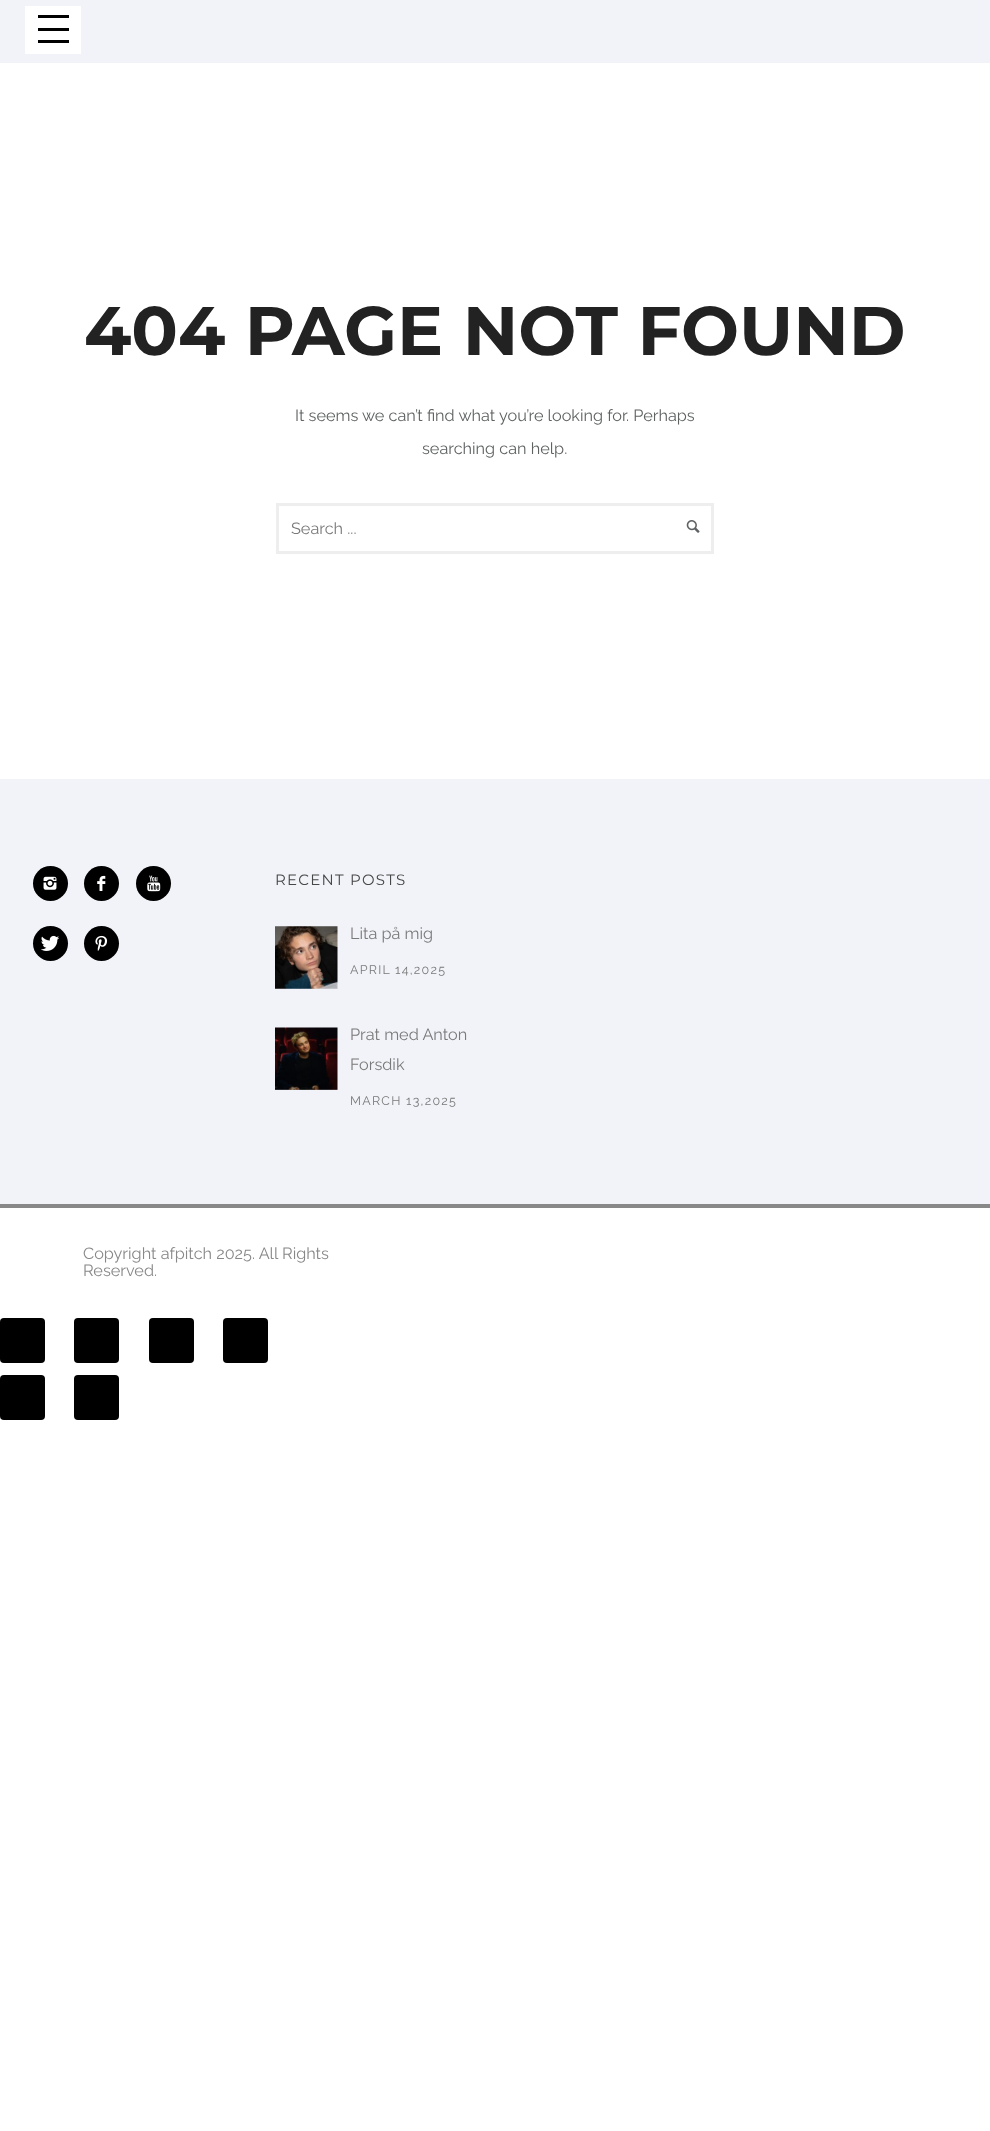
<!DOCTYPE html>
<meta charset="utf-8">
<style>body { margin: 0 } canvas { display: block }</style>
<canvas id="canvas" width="990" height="2131"></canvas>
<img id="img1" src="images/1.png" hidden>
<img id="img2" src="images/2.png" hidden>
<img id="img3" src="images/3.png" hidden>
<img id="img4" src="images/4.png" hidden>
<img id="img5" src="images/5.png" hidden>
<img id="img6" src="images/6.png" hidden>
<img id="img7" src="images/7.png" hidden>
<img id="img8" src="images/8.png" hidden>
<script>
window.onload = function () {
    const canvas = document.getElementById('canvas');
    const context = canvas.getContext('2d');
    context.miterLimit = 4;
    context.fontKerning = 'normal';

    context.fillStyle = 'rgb(255, 255, 255)';
    context.fillRect(0, 0, 990, 2131);
    context.fillStyle = 'rgb(242, 243, 248)';
    context.fillRect(0, 0, 990, 63);
    context.fillStyle = 'rgb(255, 255, 255)';
    context.fillRect(25, 6, 56, 48);
    context.fillStyle = 'rgb(0, 0, 0)';
    context.fillRect(38, 15, 31, 3);
    context.fillRect(38, 28, 31, 3);
    context.fillRect(38, 40, 31, 3);
    context.strokeStyle = 'rgb(238, 238, 238)';
    context.lineWidth = 3;
    context.strokeRect(277.5, 504.5, 435, 48);
    context.drawImage(document.getElementById('img1'), 686, 520, 14, 13);
    context.fillStyle = 'rgb(242, 243, 248)';
    context.fillRect(0, 779, 990, 425);
    context.fillStyle = 'rgb(0, 0, 0)';
    context.beginPath();
    context.arc(50.5, 883.5, 17.5, 0, 2 * Math.PI);
    context.fill();
    context.drawImage(document.getElementById('img2'), 43, 876, 14, 14);
    context.beginPath();
    context.arc(101.5, 883.5, 17.5, 0, 2 * Math.PI);
    context.fill();
    context.drawImage(document.getElementById('img3'), 97, 875, 9, 16);
    context.beginPath();
    context.arc(153.5, 883.5, 17.5, 0, 2 * Math.PI);
    context.fill();
    context.drawImage(document.getElementById('img4'), 147, 875, 14, 17);
    context.beginPath();
    context.arc(50.5, 943.5, 17.5, 0, 2 * Math.PI);
    context.fill();
    context.drawImage(document.getElementById('img5'), 41, 935, 18, 16);
    context.beginPath();
    context.arc(101.5, 943.5, 17.5, 0, 2 * Math.PI);
    context.fill();
    context.drawImage(document.getElementById('img6'), 95, 935, 13, 16);
    context.drawImage(document.getElementById('img7'), 275, 926, 63, 63);
    context.drawImage(document.getElementById('img8'), 275, 1027, 63, 63);
    context.fillStyle = 'rgb(136, 136, 136)';
    context.fillRect(0, 1204, 990, 4);
    context.fillStyle = 'rgb(0, 0, 0)';
    context.beginPath();
    context.roundRect(0, 1318, 45, 45, 4);
    context.fill();
    context.beginPath();
    context.roundRect(74, 1318, 45, 45, 4);
    context.fill();
    context.beginPath();
    context.roundRect(149, 1318, 45, 45, 4);
    context.fill();
    context.beginPath();
    context.roundRect(223, 1318, 45, 45, 4);
    context.fill();
    context.beginPath();
    context.roundRect(0, 1375, 45, 45, 4);
    context.fill();
    context.beginPath();
    context.roundRect(74, 1375, 45, 45, 4);
    context.fill();
    context.font = 'bold 68.75px Montserrat';
    context.fillStyle = 'rgb(34, 34, 34)';
    context.fillText('404 PAGE NOT FOUND', 84, 355);
    context.font = '16.25px Raleway';
    context.fillStyle = 'rgb(95, 98, 99)';
    context.fillText('It seems we can’t find what you’re looking for. Perhaps', 295, 421);
    context.fillText('searching can help.', 422, 454);
    context.fillStyle = 'rgb(122, 122, 122)';
    context.fillText('Search ...', 291, 534);
    context.letterSpacing = '1.25px';
    context.font = '15px Montserrat';
    context.fillStyle = 'rgb(71, 71, 71)';
    context.fillText('RECENT POSTS', 275, 885);
    context.letterSpacing = '0px';
    context.font = '16.25px Raleway';
    context.fillStyle = 'rgb(122, 122, 122)';
    context.fillText('Lita på mig', 350, 939);
    context.letterSpacing = '1.25px';
    context.font = '12.5px Raleway';
    context.fillText('APRIL 14,2025', 350, 974);
    context.letterSpacing = '0px';
    context.font = '16.25px Raleway';
    context.fillText('Prat med Anton', 350, 1040);
    context.fillText('Forsdik', 350, 1070);
    context.letterSpacing = '1.25px';
    context.font = '12.5px Raleway';
    context.fillText('MARCH 13,2025', 350, 1105);
    context.letterSpacing = '0px';
    context.font = '16.25px Raleway';
    context.fillStyle = 'rgb(136, 136, 136)';
    context.fillText('Copyright afpitch 2025. All Rights', 83, 1259);
    context.fillText('Reserved.', 83, 1276);
};
</script>
